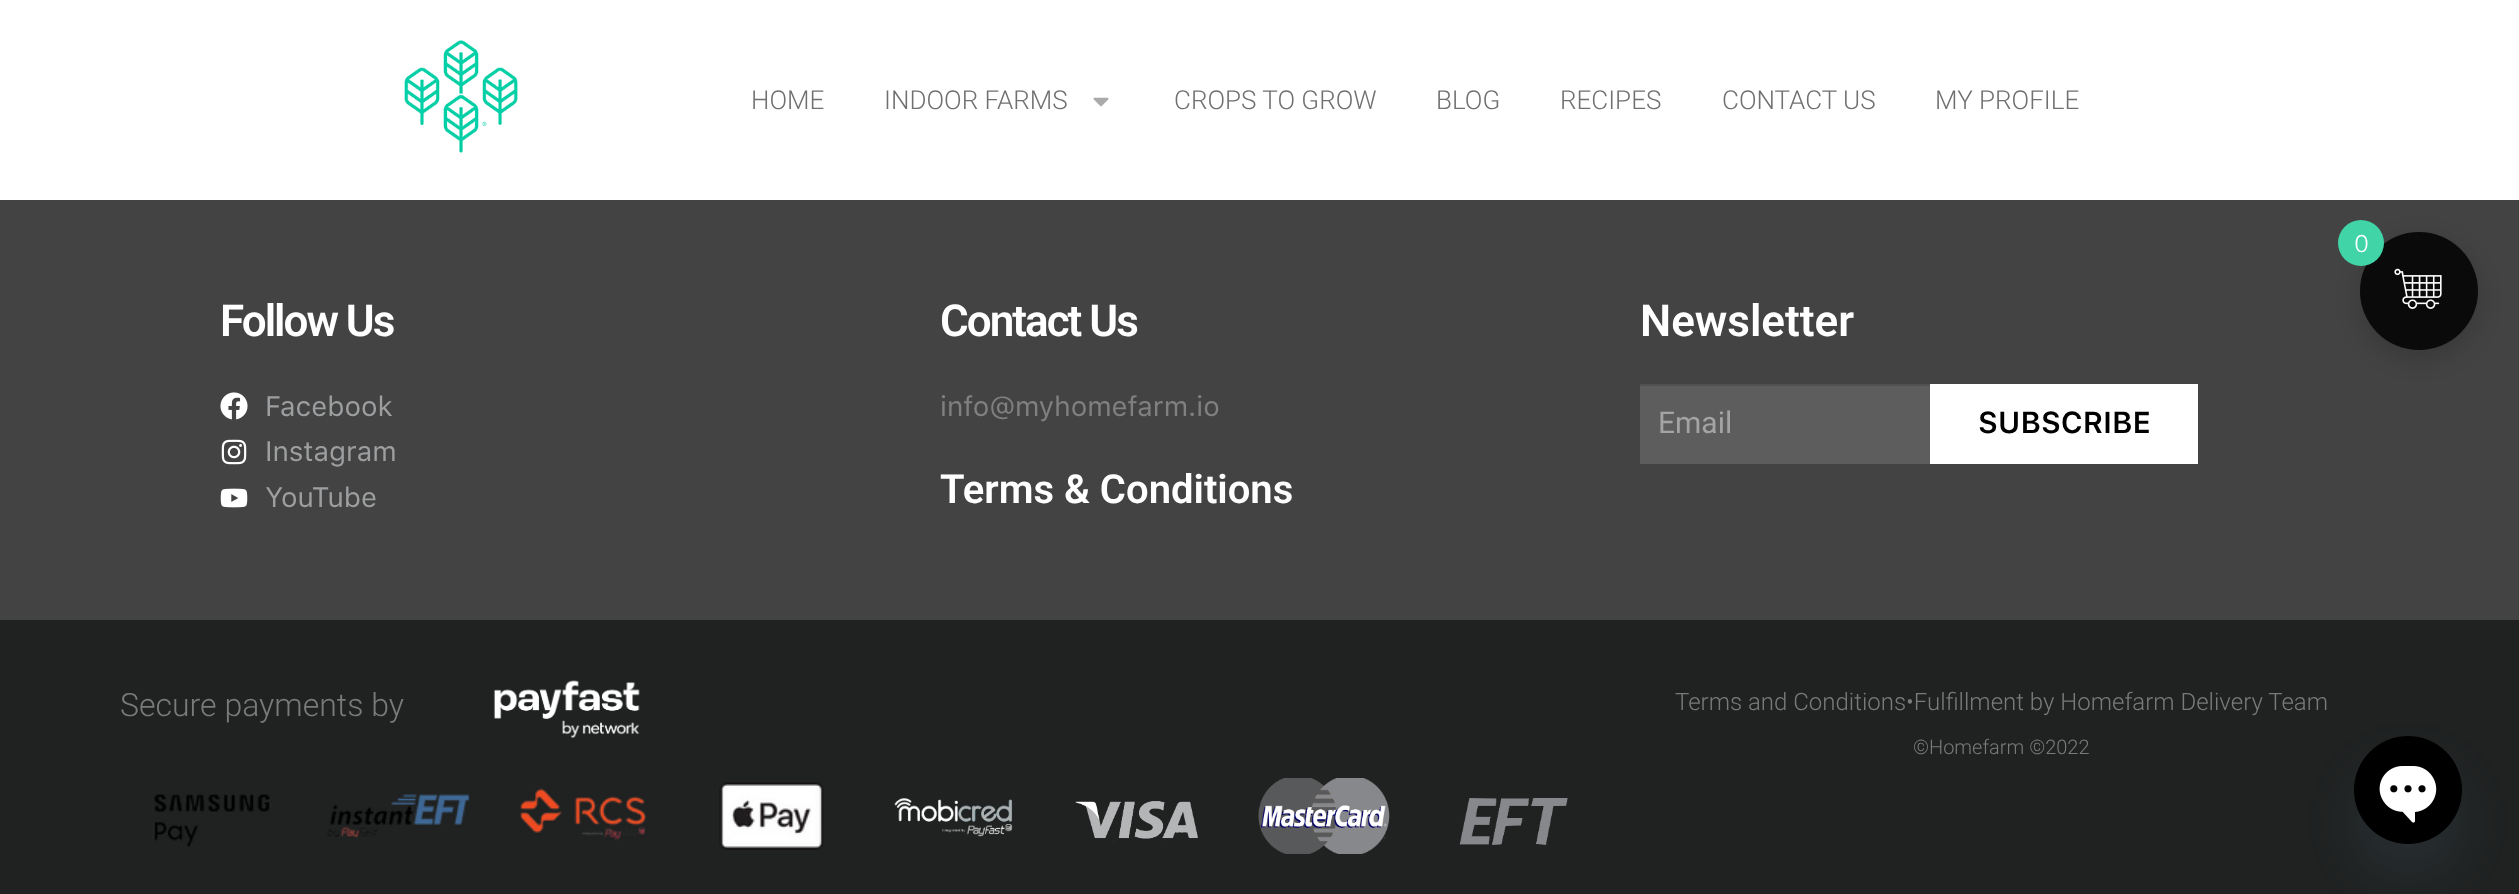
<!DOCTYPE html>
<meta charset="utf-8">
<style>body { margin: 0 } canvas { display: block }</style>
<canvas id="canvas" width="2519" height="894"></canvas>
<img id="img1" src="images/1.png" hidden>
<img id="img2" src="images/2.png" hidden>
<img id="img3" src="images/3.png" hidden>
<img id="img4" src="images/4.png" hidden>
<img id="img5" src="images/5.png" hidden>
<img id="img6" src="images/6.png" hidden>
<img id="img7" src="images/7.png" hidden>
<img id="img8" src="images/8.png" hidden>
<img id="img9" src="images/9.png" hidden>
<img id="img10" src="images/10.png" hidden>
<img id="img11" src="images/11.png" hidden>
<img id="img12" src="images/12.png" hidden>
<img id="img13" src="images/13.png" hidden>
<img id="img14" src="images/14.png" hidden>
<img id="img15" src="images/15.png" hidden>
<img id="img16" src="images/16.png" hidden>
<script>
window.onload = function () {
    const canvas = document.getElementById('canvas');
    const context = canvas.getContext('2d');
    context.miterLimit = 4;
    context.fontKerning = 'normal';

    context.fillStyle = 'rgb(255, 255, 255)';
    context.fillRect(0, 0, 2519, 894);
    context.drawImage(document.getElementById('img1'), 404, 40, 114, 113);
    context.drawImage(document.getElementById('img2'), 1093, 97, 16, 10);
    context.fillStyle = 'rgb(67, 67, 67)';
    context.fillRect(0, 200, 2519, 420);
    context.fillStyle = 'rgba(0, 0, 0, 0.17)';
    context.filter = 'blur(12px)';
    context.beginPath();
    context.roundRect(2360, 240, 118, 118, 59);
    context.fill();
    context.filter = 'none';
    context.fillStyle = 'rgb(10, 10, 10)';
    context.beginPath();
    context.arc(2419, 291, 59, 0, 2 * Math.PI);
    context.fill();
    context.fillStyle = 'rgb(64, 212, 167)';
    context.beginPath();
    context.arc(2361, 243, 23, 0, 2 * Math.PI);
    context.fill();
    context.drawImage(document.getElementById('img3'), 2394, 268, 48, 41);
    context.drawImage(document.getElementById('img4'), 220, 392, 28, 28);
    context.drawImage(document.getElementById('img5'), 221, 439, 26, 26);
    context.drawImage(document.getElementById('img6'), 220, 488, 28, 20);
    context.fillStyle = 'rgb(93, 93, 93)';
    context.fillRect(1640, 386, 290, 78);
    context.fillStyle = 'rgb(81, 81, 81)';
    context.fillRect(1640, 384, 290, 2);
    context.fillStyle = 'rgb(255, 255, 255)';
    context.fillRect(1930, 384, 268, 80);
    context.fillStyle = 'rgb(32, 34, 34)';
    context.fillRect(0, 620, 2519, 274);
    context.drawImage(document.getElementById('img7'), 493, 680, 147, 58);
    context.drawImage(document.getElementById('img8'), 153, 794, 118, 53);
    context.drawImage(document.getElementById('img9'), 327, 794, 143, 44);
    context.drawImage(document.getElementById('img10'), 520, 788, 127, 53);
    context.drawImage(document.getElementById('img11'), 719, 782, 105, 68);
    context.drawImage(document.getElementById('img12'), 894, 798, 119, 39);
    context.drawImage(document.getElementById('img13'), 1075, 801, 123, 41);
    context.drawImage(document.getElementById('img14'), 1258, 778, 132, 76);
    context.drawImage(document.getElementById('img15'), 1459, 798, 109, 47);
    context.fillStyle = 'rgba(73, 104, 126, 0.16)';
    context.filter = 'blur(24px)';
    context.beginPath();
    context.roundRect(2354, 768, 108, 108, 54);
    context.fill();
    context.filter = 'none';
    context.drawImage(document.getElementById('img16'), 2354, 736, 108, 108);
    context.font = '300 26px Roboto';
    context.fillStyle = 'rgb(112, 112, 112)';
    context.fillText('HOME', 751, 109);
    context.fillText('INDOOR FARMS', 884, 109);
    context.fillText('CROPS TO GROW', 1174, 109);
    context.fillText('BLOG', 1436, 109);
    context.fillText('RECIPES', 1560, 109);
    context.fillText('CONTACT US', 1722, 109);
    context.fillText('MY PROFILE', 1935, 109);
    context.font = '300 24px SF Pro Text';
    context.fillStyle = 'rgb(255, 255, 255)';
    context.fillText('0', 2354, 252);
    context.letterSpacing = '-2px';
    context.font = '600 44px Roboto';
    context.fillText('Follow Us', 220, 336);
    context.letterSpacing = '0px';
    context.font = '28px SF Pro Text';
    context.fillStyle = 'rgb(156, 158, 160)';
    context.fillText('Facebook', 265, 416);
    context.fillText('Instagram', 265, 461);
    context.fillText('YouTube', 265, 507);
    context.letterSpacing = '-2px';
    context.font = '600 44px Roboto';
    context.fillStyle = 'rgb(255, 255, 255)';
    context.fillText('Contact Us', 940, 336);
    context.letterSpacing = '0px';
    context.font = '28px SF Pro Text';
    context.fillStyle = 'rgb(128, 128, 128)';
    context.fillText('info@myhomefarm.io', 940, 416);
    context.font = '600 40px Roboto';
    context.fillStyle = 'rgb(255, 255, 255)';
    context.fillText('Terms & Conditions', 940, 503);
    context.font = '600 44px Roboto';
    context.fillText('Newsletter', 1640, 336);
    context.font = '30px Roboto';
    context.fillStyle = 'rgb(164, 164, 164)';
    context.fillText('Email', 1658, 433);
    context.font = '600 30px SF Pro Text';
    context.fillStyle = 'rgb(0, 0, 0)';
    context.fillText('SUBSCRIBE', 1978, 433);
    context.font = '300 32px Roboto';
    context.fillStyle = 'rgb(122, 122, 122)';
    context.fillText('Secure payments by', 120, 716);
    context.font = '300 24px Roboto';
    context.fillText('Terms and Conditions•Fulfillment by Homefarm Delivery Team', 1675, 710);
    context.font = '300 20px Roboto';
    context.fillText('©Homefarm ©2022', 1913, 754);
};
</script>
